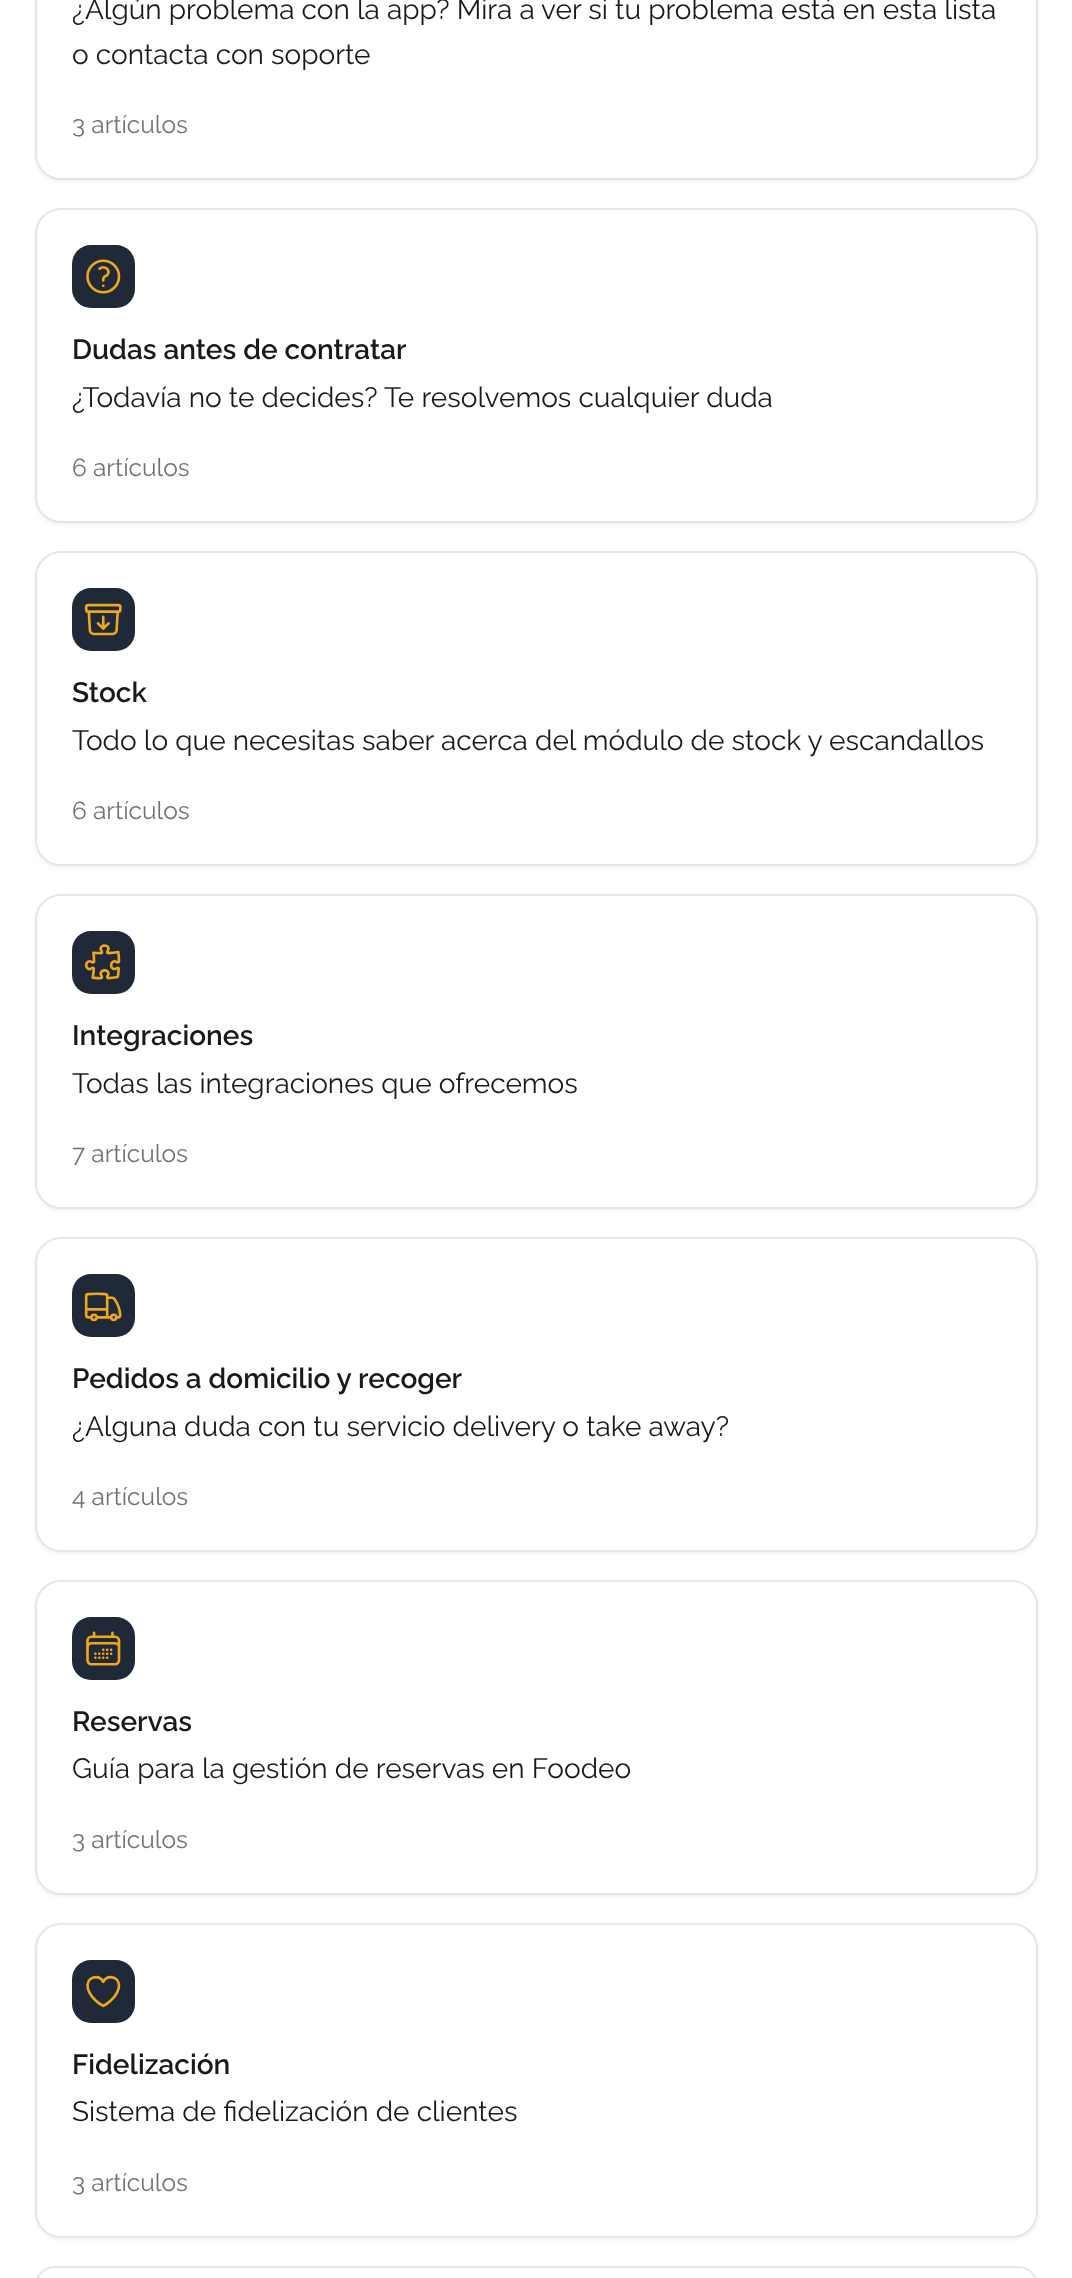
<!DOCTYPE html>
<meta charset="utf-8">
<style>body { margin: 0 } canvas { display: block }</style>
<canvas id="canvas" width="1072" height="2278"></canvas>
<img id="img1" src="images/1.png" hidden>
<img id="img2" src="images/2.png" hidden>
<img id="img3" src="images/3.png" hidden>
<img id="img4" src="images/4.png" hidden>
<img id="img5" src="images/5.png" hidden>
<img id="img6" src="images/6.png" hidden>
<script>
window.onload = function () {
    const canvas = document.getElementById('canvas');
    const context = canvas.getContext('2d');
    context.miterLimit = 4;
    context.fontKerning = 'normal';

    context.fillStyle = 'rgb(255, 255, 255)';
    context.fillRect(0, 0, 1072, 2278);
    context.fillStyle = 'rgba(0, 0, 0, 0.05)';
    context.filter = 'blur(2px)';
    context.beginPath();
    context.roundRect(35, -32, 1003, 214, 26);
    context.fill();
    context.filter = 'none';
    context.fillStyle = 'rgb(255, 255, 255)';
    context.beginPath();
    context.roundRect(36, -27, 1001, 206, 25);
    context.fill();
    context.strokeStyle = 'rgb(230, 230, 230)';
    context.lineWidth = 2;
    context.stroke();
    context.fillStyle = 'rgba(0, 0, 0, 0.05)';
    context.filter = 'blur(2px)';
    context.beginPath();
    context.roundRect(35, 210, 1003, 315, 26);
    context.fill();
    context.filter = 'none';
    context.fillStyle = 'rgb(255, 255, 255)';
    context.beginPath();
    context.roundRect(36, 209, 1001, 313, 25);
    context.fill();
    context.stroke();
    context.fillStyle = 'rgb(32, 41, 56)';
    context.beginPath();
    context.roundRect(72, 245, 63, 63, 19);
    context.fill();
    context.drawImage(document.getElementById('img1'), 86, 259, 35, 35);
    context.fillStyle = 'rgba(0, 0, 0, 0.05)';
    context.filter = 'blur(2px)';
    context.beginPath();
    context.roundRect(35, 553, 1003, 315, 26);
    context.fill();
    context.filter = 'none';
    context.fillStyle = 'rgb(255, 255, 255)';
    context.beginPath();
    context.roundRect(36, 552, 1001, 313, 25);
    context.fill();
    context.stroke();
    context.fillStyle = 'rgb(32, 41, 56)';
    context.beginPath();
    context.roundRect(72, 588, 63, 63, 19);
    context.fill();
    context.drawImage(document.getElementById('img2'), 84, 603, 38, 33);
    context.fillStyle = 'rgba(0, 0, 0, 0.05)';
    context.filter = 'blur(2px)';
    context.beginPath();
    context.roundRect(35, 896, 1003, 315, 26);
    context.fill();
    context.filter = 'none';
    context.fillStyle = 'rgb(255, 255, 255)';
    context.beginPath();
    context.roundRect(36, 895, 1001, 313, 25);
    context.fill();
    context.stroke();
    context.fillStyle = 'rgb(32, 41, 56)';
    context.beginPath();
    context.roundRect(72, 931, 63, 63, 19);
    context.fill();
    context.drawImage(document.getElementById('img3'), 84, 944, 37, 36);
    context.fillStyle = 'rgba(0, 0, 0, 0.05)';
    context.filter = 'blur(2px)';
    context.beginPath();
    context.roundRect(35, 1239, 1003, 315, 26);
    context.fill();
    context.filter = 'none';
    context.fillStyle = 'rgb(255, 255, 255)';
    context.beginPath();
    context.roundRect(36, 1238, 1001, 313, 25);
    context.fill();
    context.stroke();
    context.fillStyle = 'rgb(32, 41, 56)';
    context.beginPath();
    context.roundRect(72, 1274, 63, 63, 19);
    context.fill();
    context.drawImage(document.getElementById('img4'), 84, 1292, 38, 30);
    context.fillStyle = 'rgba(0, 0, 0, 0.05)';
    context.filter = 'blur(2px)';
    context.beginPath();
    context.roundRect(35, 1582, 1003, 315, 26);
    context.fill();
    context.filter = 'none';
    context.fillStyle = 'rgb(255, 255, 255)';
    context.beginPath();
    context.roundRect(36, 1581, 1001, 313, 25);
    context.fill();
    context.stroke();
    context.fillStyle = 'rgb(32, 41, 56)';
    context.beginPath();
    context.roundRect(72, 1617, 63, 63, 19);
    context.fill();
    context.drawImage(document.getElementById('img5'), 86, 1631, 35, 35);
    context.fillStyle = 'rgba(0, 0, 0, 0.05)';
    context.filter = 'blur(2px)';
    context.beginPath();
    context.roundRect(35, 1925, 1003, 315, 26);
    context.fill();
    context.filter = 'none';
    context.fillStyle = 'rgb(255, 255, 255)';
    context.beginPath();
    context.roundRect(36, 1924, 1001, 313, 25);
    context.fill();
    context.stroke();
    context.fillStyle = 'rgb(32, 41, 56)';
    context.beginPath();
    context.roundRect(72, 1960, 63, 63, 19);
    context.fill();
    context.drawImage(document.getElementById('img6'), 86, 1975, 35, 33);
    context.beginPath();
    context.roundRect(36, 2267, 1001, 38, 25);
    context.stroke();
    context.font = '28px Raleway';
    context.fillStyle = 'rgb(26, 26, 26)';
    context.fillText('¿Algún problema con la app? Mira a ver si tu problema está en esta lista', 72, 19);
    context.fillText('o contacta con soporte', 72, 64);
    context.font = '24.5px Raleway';
    context.fillStyle = 'rgb(115, 115, 115)';
    context.fillText('3 artículos', 72, 133);
    context.font = '600 28px Raleway';
    context.fillStyle = 'rgb(26, 26, 26)';
    context.fillText('Dudas antes de contratar', 72, 359);
    context.font = '28px Raleway';
    context.fillText('¿Todavía no te decides? Te resolvemos cualquier duda', 72, 407);
    context.font = '24.5px Raleway';
    context.fillStyle = 'rgb(115, 115, 115)';
    context.fillText('6 artículos', 72, 476);
    context.font = '600 28px Raleway';
    context.fillStyle = 'rgb(26, 26, 26)';
    context.fillText('Stock', 72, 702);
    context.font = '28px Raleway';
    context.fillText('Todo lo que necesitas saber acerca del módulo de stock y escandallos', 72, 750);
    context.font = '24.5px Raleway';
    context.fillStyle = 'rgb(115, 115, 115)';
    context.fillText('6 artículos', 72, 819);
    context.font = '600 28px Raleway';
    context.fillStyle = 'rgb(26, 26, 26)';
    context.fillText('Integraciones', 72, 1045);
    context.font = '28px Raleway';
    context.fillText('Todas las integraciones que ofrecemos', 72, 1093);
    context.font = '24.5px Raleway';
    context.fillStyle = 'rgb(115, 115, 115)';
    context.fillText('7 artículos', 72, 1162);
    context.font = '600 28px Raleway';
    context.fillStyle = 'rgb(26, 26, 26)';
    context.fillText('Pedidos a domicilio y recoger', 72, 1388);
    context.font = '28px Raleway';
    context.fillText('¿Alguna duda con tu servicio delivery o take away?', 72, 1436);
    context.font = '24.5px Raleway';
    context.fillStyle = 'rgb(115, 115, 115)';
    context.fillText('4 artículos', 72, 1505);
    context.font = '600 28px Raleway';
    context.fillStyle = 'rgb(26, 26, 26)';
    context.fillText('Reservas', 72, 1731);
    context.font = '28px Raleway';
    context.fillText('Guía para la gestión de reservas en Foodeo', 72, 1778);
    context.font = '24.5px Raleway';
    context.fillStyle = 'rgb(115, 115, 115)';
    context.fillText('3 artículos', 72, 1848);
    context.font = '600 28px Raleway';
    context.fillStyle = 'rgb(26, 26, 26)';
    context.fillText('Fidelización', 72, 2074);
    context.font = '28px Raleway';
    context.fillText('Sistema de fidelización de clientes', 72, 2121);
    context.font = '24.5px Raleway';
    context.fillStyle = 'rgb(115, 115, 115)';
    context.fillText('3 artículos', 72, 2191);
};
</script>
